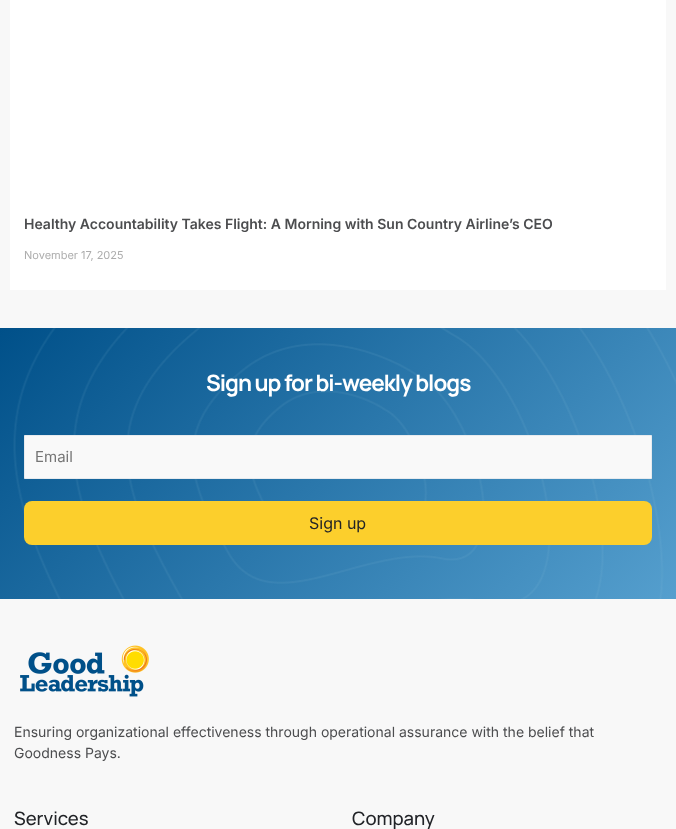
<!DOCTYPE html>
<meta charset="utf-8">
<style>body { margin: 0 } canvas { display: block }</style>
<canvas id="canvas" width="676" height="829"></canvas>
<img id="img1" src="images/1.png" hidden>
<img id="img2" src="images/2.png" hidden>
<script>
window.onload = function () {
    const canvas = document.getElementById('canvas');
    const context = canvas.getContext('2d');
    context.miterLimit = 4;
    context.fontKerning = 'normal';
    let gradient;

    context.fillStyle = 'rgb(248, 248, 248)';
    context.fillRect(0, 0, 676, 829);
    context.fillStyle = 'rgb(255, 255, 255)';
    context.fillRect(10, 0, 656, 290);
    gradient = context.createLinearGradient(101, 227, 575, 700);
    gradient.addColorStop(0, 'rgb(0, 80, 137)');
    gradient.addColorStop(1, 'rgb(85, 159, 206)');
    context.fillStyle = gradient;
    context.fillRect(0, 328, 676, 271);
    context.drawImage(document.getElementById('img1'), 13, 328, 663, 271);
    context.fillStyle = 'rgb(249, 249, 249)';
    context.beginPath();
    context.rect(24.5, 435.5, 627, 43);
    context.fill();
    context.strokeStyle = 'rgb(231, 235, 239)';
    context.stroke();
    context.fillStyle = 'rgb(252, 207, 44)';
    context.beginPath();
    context.roundRect(24, 501, 628, 44, 8);
    context.fill();
    context.drawImage(document.getElementById('img2'), 20, 645, 129, 52);
    context.font = '600 14px Inter';
    context.fillStyle = 'rgb(76, 77, 79)';
    context.fillText('Healthy Accountability Takes Flight: A Morning with Sun Country Airline’s CEO', 24, 229);
    context.font = '11px Inter';
    context.fillStyle = 'rgb(173, 173, 173)';
    context.fillText('November 17, 2025', 24, 259);
    context.letterSpacing = '-1px';
    context.font = 'bold 22.5px Manrope';
    context.fillStyle = 'rgb(255, 255, 255)';
    context.fillText('Sign up for bi-weekly blogs', 206, 391);
    context.letterSpacing = '0px';
    context.font = '15px Inter';
    context.fillStyle = 'rgb(117, 117, 117)';
    context.fillText('Email', 35, 462);
    context.font = '16px Inter';
    context.fillStyle = 'rgb(33, 35, 39)';
    context.fillText('Sign up', 309, 529);
    context.font = '14px Inter';
    context.fillStyle = 'rgb(76, 77, 79)';
    context.fillText('Ensuring organizational effectiveness through operational assurance with the belief that', 14, 737);
    context.fillText('Goodness Pays.', 14, 758);
    context.font = '500 18.5px Manrope';
    context.fillStyle = 'rgb(33, 35, 39)';
    context.fillText('Services', 14, 825);
    context.fillText('Company', 352, 825);
};
</script>
